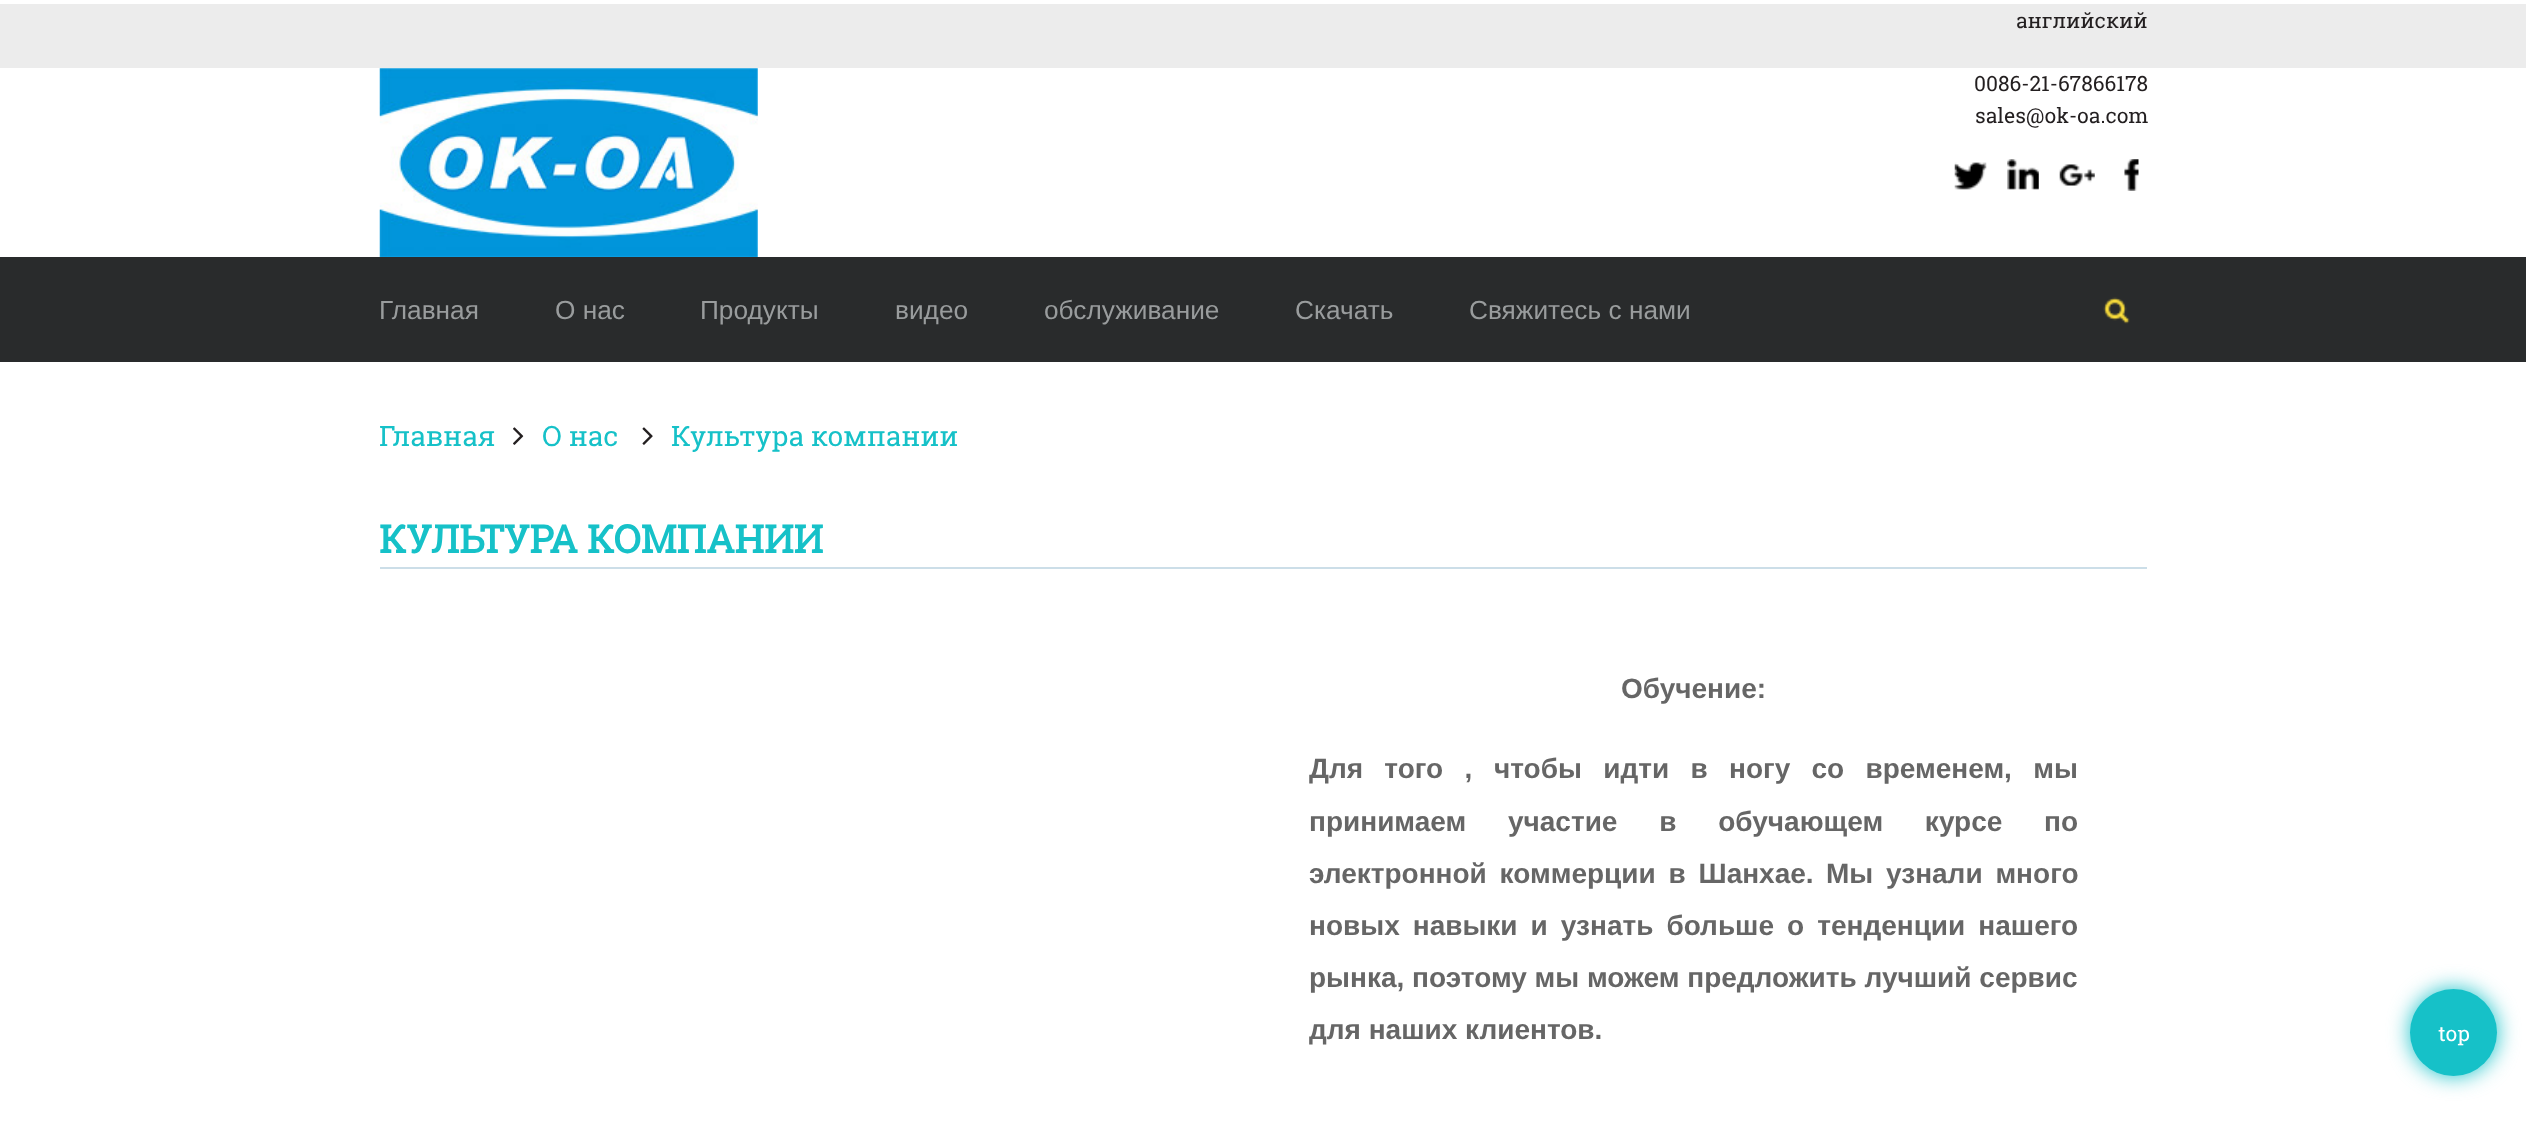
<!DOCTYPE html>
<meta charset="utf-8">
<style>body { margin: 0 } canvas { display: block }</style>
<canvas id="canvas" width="2526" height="1131"></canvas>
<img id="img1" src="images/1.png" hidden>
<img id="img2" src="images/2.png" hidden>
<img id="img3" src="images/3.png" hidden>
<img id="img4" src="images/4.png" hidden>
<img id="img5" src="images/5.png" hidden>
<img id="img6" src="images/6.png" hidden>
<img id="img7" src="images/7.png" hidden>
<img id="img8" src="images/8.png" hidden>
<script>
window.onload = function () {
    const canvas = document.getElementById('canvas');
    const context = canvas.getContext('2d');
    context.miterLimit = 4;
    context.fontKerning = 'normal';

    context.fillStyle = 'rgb(255, 255, 255)';
    context.fillRect(0, 0, 2526, 1131);
    context.fillStyle = 'rgb(236, 236, 236)';
    context.fillRect(0, 4, 2526, 64);
    context.drawImage(document.getElementById('img1'), 379, 68, 379, 189);
    context.drawImage(document.getElementById('img2'), 1954, 162, 33, 28);
    context.drawImage(document.getElementById('img3'), 2007, 159, 32, 31);
    context.drawImage(document.getElementById('img4'), 2059, 164, 36, 22);
    context.drawImage(document.getElementById('img5'), 2124, 159, 15, 32);
    context.fillStyle = 'rgb(41, 43, 44)';
    context.fillRect(0, 257, 2526, 105);
    context.drawImage(document.getElementById('img6'), 2103, 297, 27, 27);
    context.drawImage(document.getElementById('img7'), 513, 427, 11, 18);
    context.drawImage(document.getElementById('img8'), 642, 427, 11, 18);
    context.fillStyle = 'rgb(204, 222, 232)';
    context.fillRect(380, 567, 1767, 2);
    context.fillStyle = 'rgb(22, 193, 200)';
    context.filter = 'blur(10.5px)';
    context.beginPath();
    context.roundRect(2410, 989, 87, 87, 43.5);
    context.fill();
    context.filter = 'none';
    context.beginPath();
    context.arc(2453.5, 1032.5, 43.5, 0, 2 * Math.PI);
    context.fill();
    context.font = '21px Roboto Slab';
    context.fillStyle = 'rgb(35, 31, 32)';
    context.fillText('английский', 2016, 28);
    context.fillText('0086-21-67866178', 1974, 91);
    context.fillText('sales@ok-oa.com', 1975, 123);
    context.font = '26.25px Liberation Sans';
    context.fillStyle = 'rgb(153, 156, 157)';
    context.fillText('Главная', 379, 319);
    context.fillText('О нас', 555, 319);
    context.fillText('Продукты', 700, 319);
    context.fillText('видео', 895, 319);
    context.fillText('обслуживание', 1044, 319);
    context.fillText('Скачать', 1295, 319);
    context.fillText('Свяжитесь с нами', 1469, 319);
    context.font = '28px Roboto Slab';
    context.fillStyle = 'rgb(22, 193, 200)';
    context.fillText('Главная', 379, 446);
    context.fillText('О нас', 542, 446);
    context.fillText('Культура компании', 671, 446);
    context.font = 'bold 38.5px Roboto Slab';
    context.fillText('КУЛЬТУРА КОМПАНИИ', 379, 553);
    context.font = 'bold 28px Liberation Sans';
    context.fillStyle = 'rgb(102, 102, 102)';
    context.fillText('Обучение:', 1621, 698);
    context.wordSpacing = '13.5px';
    context.fillText('Для того ,', 1309, 778);
    context.fillText('чтобы идти в', 1494, 778);
    context.fillText('ногу со временем, мы', 1729, 778);
    context.wordSpacing = '34px';
    context.fillText('принимаем участие в обучающем курсе по', 1309, 831);
    context.wordSpacing = '5px';
    context.fillText('электронной коммерции в Шанхае.', 1309, 883);
    context.fillText('Мы узнали много', 1826, 883);
    context.wordSpacing = '5.25px';
    context.fillText('новых навыки и узнать больше о тенденции нашего', 1309, 935);
    context.wordSpacing = '0px';
    context.fillText('рынка, поэтому мы можем предложить лучший сервис', 1309, 987);
    context.fillText('для наших клиентов.', 1309, 1039);
    context.font = '21px Roboto Slab';
    context.fillStyle = 'rgb(255, 255, 255)';
    context.fillText('top', 2438, 1041);
};
</script>
